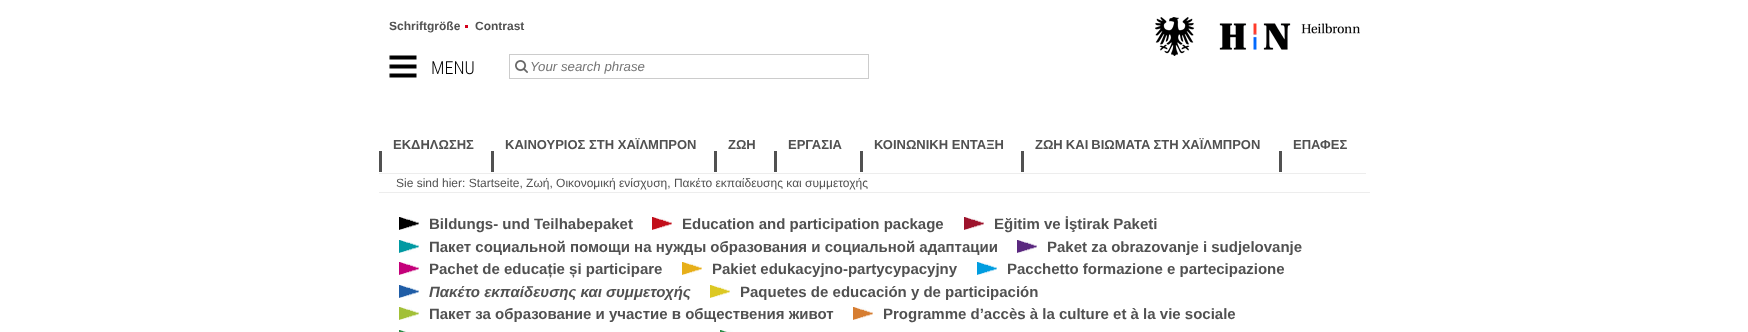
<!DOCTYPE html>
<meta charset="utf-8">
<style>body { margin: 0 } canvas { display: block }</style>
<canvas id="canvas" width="1748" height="332"></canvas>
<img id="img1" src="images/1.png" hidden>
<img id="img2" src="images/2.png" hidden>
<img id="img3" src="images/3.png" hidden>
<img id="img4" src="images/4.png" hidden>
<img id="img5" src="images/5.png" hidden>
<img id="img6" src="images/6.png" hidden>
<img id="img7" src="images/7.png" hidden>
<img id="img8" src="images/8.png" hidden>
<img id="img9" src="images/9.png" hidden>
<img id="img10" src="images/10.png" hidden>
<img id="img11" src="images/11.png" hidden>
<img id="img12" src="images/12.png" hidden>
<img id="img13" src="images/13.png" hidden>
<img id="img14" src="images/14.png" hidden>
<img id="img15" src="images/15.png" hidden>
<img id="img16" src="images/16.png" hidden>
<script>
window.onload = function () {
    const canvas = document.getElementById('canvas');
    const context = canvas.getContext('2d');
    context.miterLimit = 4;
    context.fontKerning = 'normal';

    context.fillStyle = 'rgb(255, 255, 255)';
    context.fillRect(0, 0, 1748, 332);
    context.fillStyle = 'rgb(212, 0, 28)';
    context.fillRect(465, 25, 3, 3);
    context.drawImage(document.getElementById('img1'), 515, 60, 13, 13);
    context.strokeStyle = 'rgb(204, 204, 204)';
    context.strokeRect(509.5, 54.5, 359, 24);
    context.drawImage(document.getElementById('img2'), 1155, 17, 205, 39);
    context.drawImage(document.getElementById('img3'), 389, 55, 28, 23);
    context.fillStyle = 'rgb(237, 237, 237)';
    context.fillRect(379, 173, 987, 1);
    context.fillStyle = 'rgb(81, 81, 81)';
    context.fillRect(379, 151, 3, 21);
    context.fillRect(491, 151, 3, 21);
    context.fillRect(714, 151, 3, 21);
    context.fillRect(774, 151, 3, 21);
    context.fillRect(860, 151, 3, 21);
    context.fillRect(1021, 151, 3, 21);
    context.fillRect(1279, 151, 3, 21);
    context.fillStyle = 'rgb(237, 237, 237)';
    context.fillRect(379, 192, 991, 1);
    context.fillStyle = 'rgb(0, 0, 0)';
    context.fillRect(399, 217, 20, 13);
    context.drawImage(document.getElementById('img4'), 399, 217, 20, 13);
    context.fillStyle = 'rgb(194, 14, 26)';
    context.fillRect(652, 217, 20, 13);
    context.drawImage(document.getElementById('img5'), 652, 217, 20, 13);
    context.fillStyle = 'rgb(157, 19, 44)';
    context.fillRect(964, 217, 20, 13);
    context.drawImage(document.getElementById('img6'), 964, 217, 20, 13);
    context.fillStyle = 'rgb(0, 153, 162)';
    context.fillRect(399, 240, 20, 13);
    context.drawImage(document.getElementById('img7'), 399, 240, 20, 13);
    context.fillStyle = 'rgb(90, 40, 127)';
    context.fillRect(1017, 240, 20, 13);
    context.drawImage(document.getElementById('img8'), 1017, 240, 20, 13);
    context.fillStyle = 'rgb(196, 0, 122)';
    context.fillRect(399, 262, 20, 13);
    context.drawImage(document.getElementById('img9'), 399, 262, 20, 13);
    context.fillStyle = 'rgb(231, 175, 25)';
    context.fillRect(682, 262, 20, 13);
    context.drawImage(document.getElementById('img10'), 682, 262, 20, 13);
    context.fillStyle = 'rgb(0, 157, 224)';
    context.fillRect(977, 262, 20, 13);
    context.drawImage(document.getElementById('img11'), 977, 262, 20, 13);
    context.fillStyle = 'rgb(31, 93, 166)';
    context.fillRect(399, 285, 20, 13);
    context.drawImage(document.getElementById('img12'), 399, 285, 20, 13);
    context.fillStyle = 'rgb(220, 200, 34)';
    context.fillRect(710, 285, 20, 13);
    context.drawImage(document.getElementById('img13'), 710, 285, 20, 13);
    context.fillStyle = 'rgb(162, 192, 55)';
    context.fillRect(399, 307, 20, 13);
    context.drawImage(document.getElementById('img14'), 399, 307, 20, 13);
    context.fillStyle = 'rgb(214, 125, 49)';
    context.fillRect(853, 307, 20, 13);
    context.drawImage(document.getElementById('img15'), 853, 307, 20, 13);
    context.fillStyle = 'rgb(42, 140, 70)';
    context.fillRect(399, 330, 9, 2);
    context.drawImage(document.getElementById('img16'), 400, 330, 19, 2);
    context.fillRect(720, 330, 9, 2);
    context.drawImage(document.getElementById('img16'), 721, 330, 19, 2);
    context.font = 'bold 12px Liberation Sans';
    context.fillStyle = 'rgb(81, 81, 81)';
    context.fillText('Schriftgröße', 389, 30);
    context.fillText('Contrast', 475, 30);
    context.font = 'italic 13.25px Liberation Sans';
    context.fillStyle = 'rgb(117, 117, 117)';
    context.fillText('Your search phrase', 530, 71);
    context.font = '300 18px Roboto Condensed';
    context.fillStyle = 'rgb(0, 0, 0)';
    context.fillText('MENU', 431, 74);
    context.font = 'bold 13px Liberation Sans';
    context.fillStyle = 'rgb(81, 81, 81)';
    context.fillText('ΕΚΔΗΛΩΣΗΣ', 393, 149);
    context.fillText('ΚΑΙΝΟΥΡΙΟΣ ΣΤΗ ΧΑΪΛΜΠΡΟΝ', 505, 149);
    context.fillText('ΖΩΗ', 728, 149);
    context.fillText('ΕΡΓΑΣΙΑ', 788, 149);
    context.fillText('ΚΟΙΝΩΝΙΚΗ ΕΝΤΑΞΗ', 874, 149);
    context.wordSpacing = '-0.5px';
    context.fillText('ΖΩΗ ΚΑΙ ΒΙΩΜΑΤΑ ΣΤΗ ΧΑΪΛΜΠΡΟΝ', 1035, 149);
    context.wordSpacing = '0px';
    context.fillText('ΕΠΑΦΕΣ', 1293, 149);
    context.font = '12px Liberation Sans';
    context.fillText('Sie sind hier: Startseite, Ζωή, Οικονομική ενίσχυση, Πακέτο εκπαίδευσης και συμμετοχής', 396, 187);
    context.font = 'bold 15px Liberation Sans';
    context.fillText('Bildungs- und Teilhabepaket', 429, 229);
    context.fillText('Education and participation package', 682, 229);
    context.fillText('Eğitim ve İştirak Paketi', 994, 229);
    context.fillText('Пакет социальной помощи на нужды образования и социальной адаптации', 429, 252);
    context.fillText('Paket za obrazovanje i sudjelovanje', 1047, 252);
    context.fillText('Pachet de educație și participare', 429, 274);
    context.fillText('Pakiet edukacyjno-partycypacyjny', 712, 274);
    context.fillText('Pacchetto formazione e partecipazione', 1007, 274);
    context.font = 'italic bold 15px Liberation Sans';
    context.fillText('Πακέτο εκπαίδευσης και συμμετοχής', 429, 297);
    context.font = 'bold 15px Liberation Sans';
    context.fillText('Paquetes de educación y de participación', 740, 297);
    context.fillText('Пакет за образование и участие в обществения живот', 429, 319);
    context.fillText('Programme d’accès à la culture et à la vie sociale', 883, 319);
};
</script>
